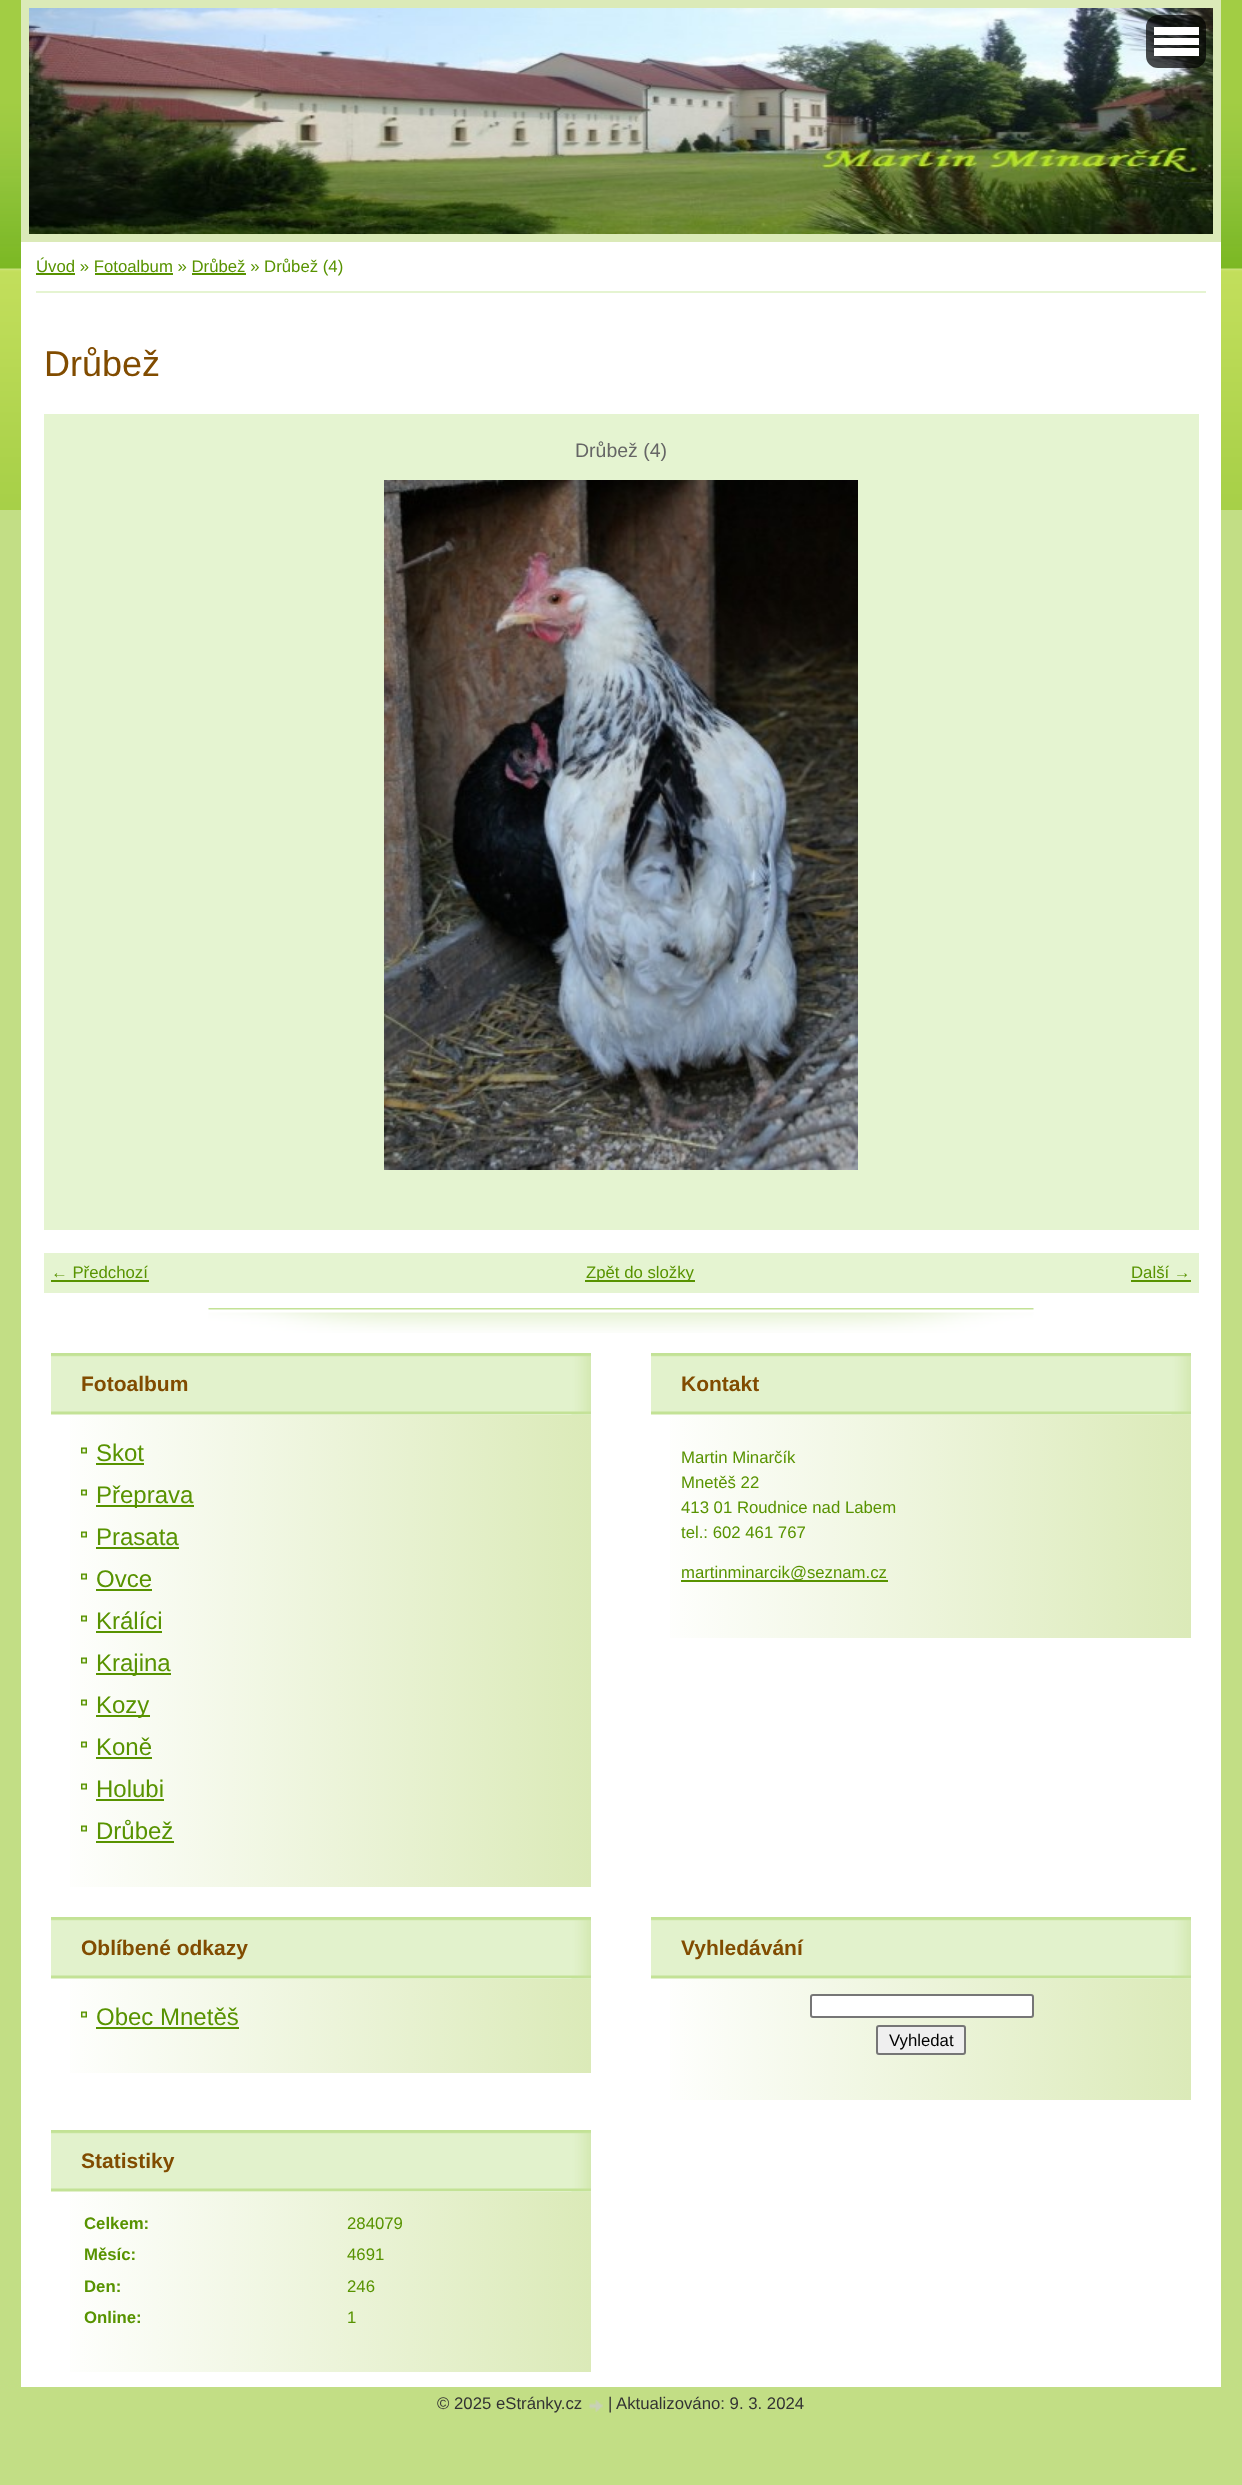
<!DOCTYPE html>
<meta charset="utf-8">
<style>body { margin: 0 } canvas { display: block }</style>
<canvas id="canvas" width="1242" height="2485"></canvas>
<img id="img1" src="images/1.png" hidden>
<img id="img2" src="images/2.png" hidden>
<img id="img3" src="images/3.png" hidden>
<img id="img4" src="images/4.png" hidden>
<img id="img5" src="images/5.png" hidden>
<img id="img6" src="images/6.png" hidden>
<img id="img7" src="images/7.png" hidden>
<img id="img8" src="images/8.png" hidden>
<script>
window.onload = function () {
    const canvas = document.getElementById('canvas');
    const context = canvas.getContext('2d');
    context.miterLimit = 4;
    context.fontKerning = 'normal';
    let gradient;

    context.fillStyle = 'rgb(194, 222, 133)';
    context.fillRect(0, 0, 1242, 2485);
    context.drawImage(document.getElementById('img1'), 0, 0, 1242, 510);
    context.drawImage(document.getElementById('img2'), 29, 8, 1184, 226);
    context.strokeStyle = 'rgb(219, 234, 184)';
    context.lineWidth = 8;
    context.strokeRect(25, 4, 1192, 234);
    context.fillStyle = 'rgba(0, 0, 0, 0.7)';
    context.beginPath();
    context.roundRect(1146, 15, 60, 53, 12);
    context.fill();
    context.fillStyle = 'rgb(255, 255, 255)';
    context.fillRect(1154, 27, 45, 8);
    context.fillRect(1154, 38, 45, 7);
    context.fillRect(1154, 48, 45, 8);
    context.fillRect(21, 242, 1200, 2145);
    context.fillStyle = 'rgb(229, 244, 209)';
    context.fillRect(36, 291, 1170, 2);
    context.fillStyle = 'rgb(88, 147, 0)';
    context.fillRect(36, 273, 39, 2);
    context.fillRect(95, 273, 78, 2);
    context.fillRect(192, 273, 54, 2);
    context.drawImage(document.getElementById('img3'), 208, 1308, 826, 25);
    context.fillStyle = 'rgb(229, 244, 209)';
    context.fillRect(44, 414, 1155, 816);
    context.drawImage(document.getElementById('img4'), 384, 480, 474, 690);
    context.fillRect(44, 1253, 1155, 40);
    context.fillStyle = 'rgb(88, 147, 0)';
    context.fillRect(51, 1280, 98, 2);
    context.fillRect(585, 1280, 110, 2);
    context.fillRect(1131, 1280, 60, 2);
    context.drawImage(document.getElementById('img5'), 51, 1353, 540, 62);
    context.drawImage(document.getElementById('img6'), 571, 1356, 20, 59);
    gradient = context.createLinearGradient(51, 1651, 591, 1651);
    gradient.addColorStop(0, 'rgb(255, 255, 255)');
    gradient.addColorStop(1, 'rgb(219, 234, 184)');
    context.fillStyle = gradient;
    context.fillRect(70, 1415, 521, 472);
    context.drawImage(document.getElementById('img7'), 81, 1447, 6, 7);
    context.fillStyle = 'rgb(88, 147, 0)';
    context.fillRect(96, 1463, 48, 2);
    context.drawImage(document.getElementById('img7'), 81, 1489, 6, 7);
    context.fillRect(96, 1505, 98, 2);
    context.drawImage(document.getElementById('img7'), 81, 1531, 6, 7);
    context.fillRect(96, 1547, 83, 2);
    context.drawImage(document.getElementById('img7'), 81, 1573, 6, 7);
    context.fillRect(96, 1589, 56, 2);
    context.drawImage(document.getElementById('img7'), 81, 1615, 6, 7);
    context.fillRect(96, 1631, 66, 2);
    context.drawImage(document.getElementById('img7'), 81, 1657, 6, 7);
    context.fillRect(96, 1673, 75, 2);
    context.drawImage(document.getElementById('img7'), 81, 1699, 6, 7);
    context.fillRect(96, 1715, 54, 2);
    context.drawImage(document.getElementById('img7'), 81, 1741, 6, 7);
    context.fillRect(96, 1757, 56, 2);
    context.drawImage(document.getElementById('img7'), 81, 1783, 6, 7);
    context.fillRect(96, 1799, 68, 2);
    context.drawImage(document.getElementById('img7'), 81, 1825, 6, 7);
    context.fillRect(96, 1841, 78, 2);
    context.drawImage(document.getElementById('img5'), 651, 1353, 540, 62);
    context.drawImage(document.getElementById('img6'), 1171, 1356, 20, 59);
    gradient = context.createLinearGradient(651, 1526, 1191, 1526);
    gradient.addColorStop(0, 'rgb(255, 255, 255)');
    gradient.addColorStop(1, 'rgb(219, 234, 184)');
    context.fillStyle = gradient;
    context.fillRect(670, 1415, 521, 223);
    context.fillStyle = 'rgb(88, 147, 0)';
    context.fillRect(681, 1580, 207, 2);
    context.drawImage(document.getElementById('img5'), 51, 1917, 540, 62);
    context.drawImage(document.getElementById('img6'), 571, 1920, 20, 59);
    gradient = context.createLinearGradient(51, 2026, 591, 2026);
    gradient.addColorStop(0, 'rgb(255, 255, 255)');
    gradient.addColorStop(1, 'rgb(219, 234, 184)');
    context.fillStyle = gradient;
    context.fillRect(70, 1979, 521, 94);
    context.drawImage(document.getElementById('img7'), 81, 2011, 6, 7);
    context.fillStyle = 'rgb(88, 147, 0)';
    context.fillRect(96, 2027, 143, 2);
    context.drawImage(document.getElementById('img5'), 651, 1917, 540, 62);
    context.drawImage(document.getElementById('img6'), 1171, 1920, 20, 59);
    gradient = context.createLinearGradient(651, 2039, 1191, 2039);
    gradient.addColorStop(0, 'rgb(255, 255, 255)');
    gradient.addColorStop(1, 'rgb(219, 234, 184)');
    context.fillStyle = gradient;
    context.fillRect(670, 1979, 521, 121);
    context.fillStyle = 'rgb(255, 255, 255)';
    context.beginPath();
    context.roundRect(811, 1995, 222, 22, 2);
    context.fill();
    context.strokeStyle = 'rgb(118, 118, 118)';
    context.lineWidth = 2;
    context.stroke();
    context.fillStyle = 'rgb(239, 239, 239)';
    context.beginPath();
    context.roundRect(877, 2026, 88, 28, 2);
    context.fill();
    context.stroke();
    context.drawImage(document.getElementById('img5'), 51, 2130, 540, 62);
    context.drawImage(document.getElementById('img6'), 571, 2133, 20, 59);
    gradient = context.createLinearGradient(51, 2282, 591, 2282);
    gradient.addColorStop(0, 'rgb(255, 255, 255)');
    gradient.addColorStop(1, 'rgb(219, 234, 184)');
    context.fillStyle = gradient;
    context.fillRect(70, 2192, 521, 180);
    context.drawImage(document.getElementById('img8'), 589, 2400, 14, 12);
    context.font = '16.75px Liberation Sans';
    context.fillStyle = 'rgb(88, 147, 0)';
    context.fillText('Úvod » Fotoalbum » Drůbež » Drůbež (4)', 36, 272);
    context.font = '36px Liberation Sans';
    context.fillStyle = 'rgb(129, 76, 0)';
    context.fillText('Drůbež', 44, 376);
    context.font = '19.5px Liberation Sans';
    context.fillStyle = 'rgb(102, 102, 102)';
    context.fillText('Drůbež (4)', 575, 457);
    context.font = '16.75px Liberation Sans';
    context.fillStyle = 'rgb(88, 147, 0)';
    context.fillText('← Předchozí', 51, 1278);
    context.fillText('Zpět do složky', 586, 1278);
    context.fillText('Další →', 1131, 1278);
    context.font = 'bold 21px Liberation Sans';
    context.fillStyle = 'rgb(129, 76, 0)';
    context.fillText('Fotoalbum', 81, 1391);
    context.font = '24px Liberation Sans';
    context.fillStyle = 'rgb(88, 147, 0)';
    context.fillText('Skot', 96, 1461);
    context.fillText('Přeprava', 96, 1503);
    context.fillText('Prasata', 96, 1545);
    context.fillText('Ovce', 96, 1587);
    context.fillText('Králíci', 96, 1629);
    context.fillText('Krajina', 96, 1671);
    context.fillText('Kozy', 96, 1713);
    context.fillText('Koně', 96, 1755);
    context.fillText('Holubi', 96, 1797);
    context.fillText('Drůbež', 96, 1839);
    context.font = 'bold 21px Liberation Sans';
    context.fillStyle = 'rgb(129, 76, 0)';
    context.fillText('Kontakt', 681, 1391);
    context.font = '16.75px Liberation Sans';
    context.fillStyle = 'rgb(88, 147, 0)';
    context.fillText('Martin Minarčík', 681, 1463);
    context.fillText('Mnetěš 22', 681, 1488);
    context.fillText('413 01 Roudnice nad Labem', 681, 1513);
    context.fillText('tel.: 602 461 767', 681, 1538);
    context.fillText('martinminarcik@seznam.cz', 681, 1578);
    context.font = 'bold 21px Liberation Sans';
    context.fillStyle = 'rgb(129, 76, 0)';
    context.fillText('Oblíbené odkazy', 81, 1955);
    context.font = '24px Liberation Sans';
    context.fillStyle = 'rgb(88, 147, 0)';
    context.fillText('Obec Mnetěš', 96, 2025);
    context.font = 'bold 21px Liberation Sans';
    context.fillStyle = 'rgb(129, 76, 0)';
    context.fillText('Vyhledávání', 681, 1955);
    context.font = '16.75px Liberation Sans';
    context.fillStyle = 'rgb(0, 0, 0)';
    context.fillText('Vyhledat', 889, 2046);
    context.font = 'bold 21px Liberation Sans';
    context.fillStyle = 'rgb(129, 76, 0)';
    context.fillText('Statistiky', 81, 2168);
    context.font = 'bold 16.75px Liberation Sans';
    context.fillStyle = 'rgb(88, 147, 0)';
    context.fillText('Celkem:', 84, 2229);
    context.font = '16.75px Liberation Sans';
    context.fillText('284079', 347, 2229);
    context.font = 'bold 16.75px Liberation Sans';
    context.fillText('Měsíc:', 84, 2260);
    context.font = '16.75px Liberation Sans';
    context.fillText('4691', 347, 2260);
    context.font = 'bold 16.75px Liberation Sans';
    context.fillText('Den:', 84, 2292);
    context.font = '16.75px Liberation Sans';
    context.fillText('246', 347, 2292);
    context.font = 'bold 16.75px Liberation Sans';
    context.fillText('Online:', 84, 2323);
    context.font = '16.75px Liberation Sans';
    context.fillText('1', 347, 2323);
    context.fillStyle = 'rgb(51, 51, 51)';
    context.fillText('© 2025 eStránky.cz', 437, 2409);
    context.fillText('|', 608, 2409);
    context.fillText('Aktualizováno: 9. 3. 2024', 616, 2409);
};
</script>
